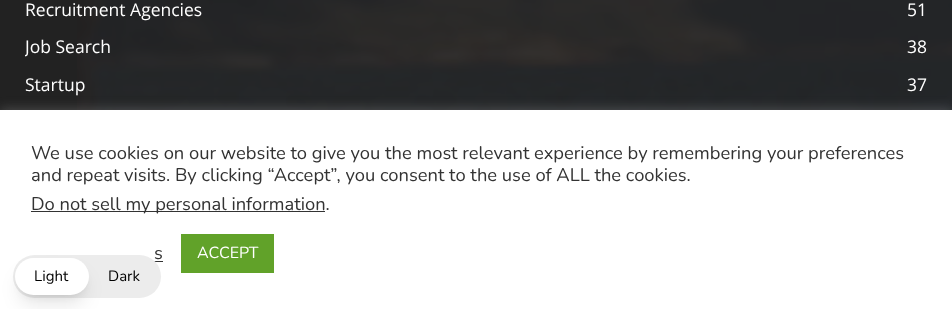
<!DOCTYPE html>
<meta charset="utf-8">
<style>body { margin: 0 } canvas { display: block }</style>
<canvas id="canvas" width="952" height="309"></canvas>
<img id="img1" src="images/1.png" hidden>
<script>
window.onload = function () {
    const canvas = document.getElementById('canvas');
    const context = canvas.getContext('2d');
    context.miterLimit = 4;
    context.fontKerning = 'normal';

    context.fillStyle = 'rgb(34, 34, 34)';
    context.fillRect(0, 0, 952, 309);
    context.drawImage(document.getElementById('img1'), 77, 0, 875, 110);
    context.fillStyle = 'rgba(172, 171, 171, 0.3)';
    context.filter = 'blur(6px)';
    context.beginPath();
    context.rect(0, 109, 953, 200);
    context.fill();
    context.filter = 'none';
    context.fillStyle = 'rgb(255, 255, 255)';
    context.fillRect(0, 110, 952, 199);
    context.fillStyle = 'rgb(51, 51, 51)';
    context.fillRect(31, 211, 294, 1);
    context.fillRect(154, 261, 9, 1);
    context.fillStyle = 'rgb(97, 162, 41)';
    context.fillRect(181, 234, 93, 39);
    context.font = '17.5px Open Sans';
    context.fillStyle = 'rgb(255, 255, 255)';
    context.fillText('Recruitment Agencies', 25, 16);
    context.fillText('51', 907, 16);
    context.save();
    context.beginPath();
    context.rect(25, 0, 903, 104);
    context.clip();
    context.fillText('Job Search', 25, 53);
    context.restore();
    context.fillText('38', 907, 53);
    context.fillText('Startup', 25, 91);
    context.fillText('37', 907, 91);
    context.font = '18.35px Nunito';
    context.fillStyle = 'rgb(51, 51, 51)';
    context.fillText('We use cookies on our website to give you the most relevant experience by remembering your preferences', 31, 159);
    context.fillText('and repeat visits. By clicking “Accept”, you consent to the use of ALL the cookies.', 31, 181);
    context.fillText('Do not sell my personal information.', 31, 210);
    context.fillText('s', 154, 259);
    context.font = '16px Nunito';
    context.fillStyle = 'rgb(255, 255, 255)';
    context.fillText('ACCEPT', 197, 258);
    context.fillStyle = 'rgb(236, 236, 236)';
    context.beginPath();
    context.roundRect(13, 255, 148, 43, 21.5);
    context.fill();
    context.fillStyle = 'rgba(0, 0, 0, 0.1)';
    context.filter = 'blur(4px)';
    context.beginPath();
    context.roundRect(20, 268, 64, 27, 13.5);
    context.fill();
    context.filter = 'none';
    context.filter = 'blur(9.5px)';
    context.beginPath();
    context.roundRect(19, 274, 66, 30, 15);
    context.fill();
    context.filter = 'none';
    context.fillStyle = 'rgb(255, 255, 255)';
    context.beginPath();
    context.roundRect(15, 258, 74, 37, 18.5);
    context.fill();
    context.font = '15px Nunito';
    context.fillStyle = 'rgb(0, 0, 0)';
    context.fillText('Light', 34, 281);
    context.fillText('Dark', 108, 281);
};
</script>
